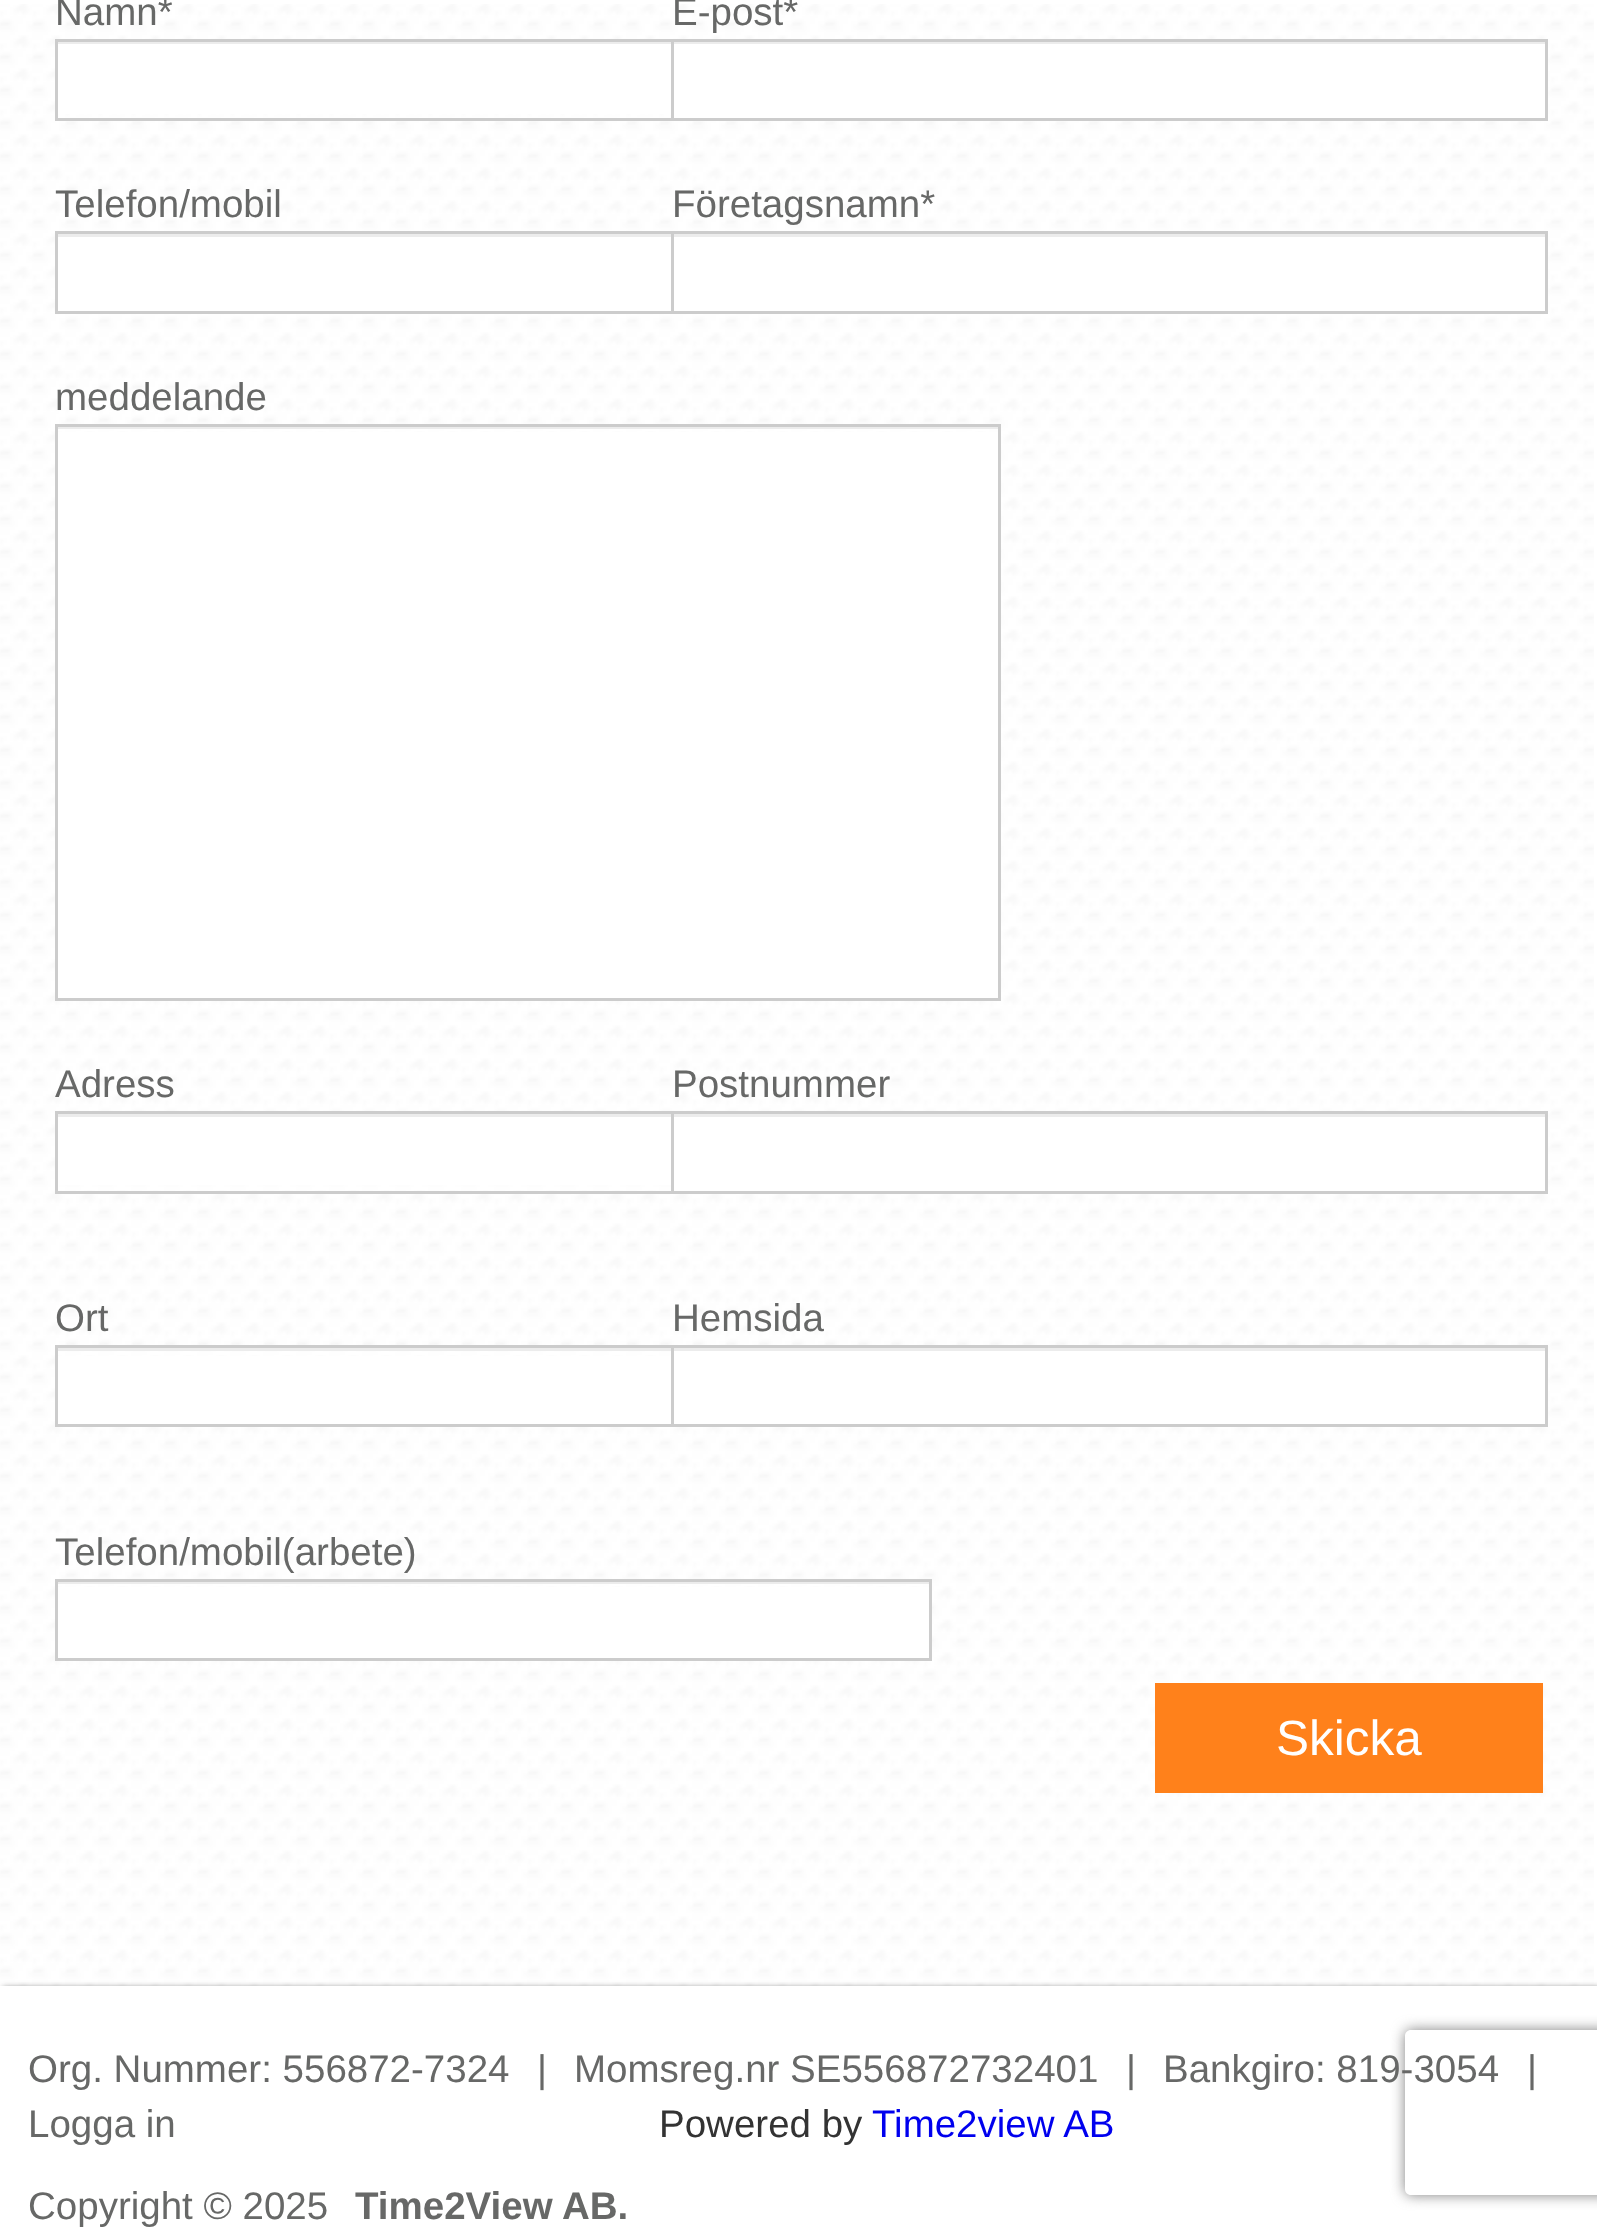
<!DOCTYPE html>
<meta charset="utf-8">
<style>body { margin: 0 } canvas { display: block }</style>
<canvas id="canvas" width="1597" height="2231"></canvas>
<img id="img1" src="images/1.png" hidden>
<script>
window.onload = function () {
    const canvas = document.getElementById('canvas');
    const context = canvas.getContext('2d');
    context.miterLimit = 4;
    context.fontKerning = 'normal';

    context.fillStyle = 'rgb(255, 255, 255)';
    context.fillRect(0, 0, 1597, 2231);
    context.drawImage(document.getElementById('img1'), 0, 4, 1594, 1982);
    context.fillRect(58, 44, 613, 70);
    context.fillStyle = 'rgb(236, 236, 236)';
    context.fillRect(58, 42, 613, 2);
    context.strokeStyle = 'rgb(204, 204, 204)';
    context.lineWidth = 3;
    context.strokeRect(56.5, 40.5, 874, 79);
    context.fillStyle = 'rgb(255, 255, 255)';
    context.fillRect(674, 44, 871, 74);
    context.fillStyle = 'rgb(236, 236, 236)';
    context.fillRect(674, 42, 872, 2);
    context.strokeRect(672.5, 40.5, 874, 79);
    context.fillStyle = 'rgb(255, 255, 255)';
    context.fillRect(58, 237, 613, 74);
    context.fillStyle = 'rgb(236, 236, 236)';
    context.fillRect(58, 234, 613, 3);
    context.strokeRect(56.5, 232.5, 874, 80);
    context.fillStyle = 'rgb(255, 255, 255)';
    context.fillRect(674, 237, 871, 74);
    context.fillStyle = 'rgb(236, 236, 236)';
    context.fillRect(674, 234, 872, 3);
    context.strokeRect(672.5, 232.5, 874, 80);
    context.fillStyle = 'rgb(255, 255, 255)';
    context.fillRect(58, 432, 940, 566);
    context.fillStyle = 'rgb(236, 236, 236)';
    context.fillRect(58, 427, 940, 2);
    context.strokeRect(56.5, 425.5, 943, 574);
    context.fillStyle = 'rgb(255, 255, 255)';
    context.fillRect(58, 1117, 613, 68);
    context.fillStyle = 'rgb(236, 236, 236)';
    context.fillRect(58, 1114, 613, 3);
    context.strokeRect(56.5, 1112.5, 874, 80);
    context.fillStyle = 'rgb(255, 255, 255)';
    context.fillRect(58, 1356, 613, 68);
    context.fillStyle = 'rgb(236, 236, 236)';
    context.fillRect(58, 1348, 613, 3);
    context.strokeRect(56.5, 1346.5, 874, 79);
    context.fillStyle = 'rgb(255, 255, 255)';
    context.fillRect(58, 1587, 871, 71);
    context.fillStyle = 'rgb(236, 236, 236)';
    context.fillRect(58, 1582, 872, 2);
    context.strokeRect(56.5, 1580.5, 874, 79);
    context.fillStyle = 'rgb(255, 255, 255)';
    context.fillRect(674, 1117, 871, 74);
    context.fillStyle = 'rgb(236, 236, 236)';
    context.fillRect(674, 1114, 872, 3);
    context.strokeRect(672.5, 1112.5, 874, 80);
    context.fillStyle = 'rgb(255, 255, 255)';
    context.fillRect(674, 1351, 871, 73);
    context.fillStyle = 'rgb(236, 236, 236)';
    context.fillRect(674, 1348, 872, 3);
    context.strokeRect(672.5, 1346.5, 874, 79);
    context.fillStyle = 'rgb(255, 129, 27)';
    context.fillRect(1155, 1683, 388, 110);
    context.fillStyle = 'rgba(50, 50, 50, 0.75)';
    context.filter = 'blur(3px)';
    context.beginPath();
    context.rect(3, 1988, 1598, 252);
    context.fill();
    context.filter = 'none';
    context.fillStyle = 'rgb(255, 255, 255)';
    context.fillRect(0, 1986, 1597, 245);
    context.save();
    context.beginPath();
    context.moveTo(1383, 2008);
    context.lineTo(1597, 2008);
    context.lineTo(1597, 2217);
    context.lineTo(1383, 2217);
    context.closePath();
    context.moveTo(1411, 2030);
    context.lineTo(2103, 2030);
    context.bezierCurveTo(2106.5, 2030, 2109, 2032.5, 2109, 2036);
    context.lineTo(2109, 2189);
    context.bezierCurveTo(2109, 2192.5, 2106.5, 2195, 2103, 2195);
    context.lineTo(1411, 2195);
    context.bezierCurveTo(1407.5, 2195, 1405, 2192.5, 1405, 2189);
    context.lineTo(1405, 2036);
    context.bezierCurveTo(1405, 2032.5, 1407.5, 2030, 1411, 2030);
    context.closePath();
    context.clip('evenodd');
    context.fillStyle = 'rgb(128, 128, 128)';
    context.filter = 'blur(7px)';
    context.beginPath();
    context.roundRect(1405, 2030, 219, 165, 6);
    context.fill();
    context.filter = 'none';
    context.restore();
    context.font = '38.5px Liberation Sans';
    context.fillStyle = 'rgb(103, 104, 103)';
    context.fillText('Namn*', 55, 25);
    context.fillText('E-post*', 672, 25);
    context.fillText('Telefon/mobil', 55, 217);
    context.fillText('Företagsnamn*', 672, 217);
    context.fillText('meddelande', 55, 410);
    context.fillText('Adress', 55, 1097);
    context.fillText('Ort', 55, 1331);
    context.fillText('Telefon/mobil(arbete)', 55, 1565);
    context.fillText('Postnummer', 672, 1097);
    context.fillText('Hemsida', 672, 1331);
    context.font = '49.5px Liberation Sans';
    context.fillStyle = 'rgb(255, 255, 255)';
    context.fillText('Skicka', 1276, 1755);
    context.font = '38.5px Liberation Sans';
    context.fillStyle = 'rgb(103, 104, 103)';
    context.fillText('Org. Nummer: 556872-7324', 28, 2082);
    context.fillText('|', 537, 2082);
    context.fillText('Momsreg.nr SE556872732401', 574, 2082);
    context.fillText('|', 1126, 2082);
    context.fillText('Bankgiro: 819-3054', 1163, 2082);
    context.fillText('|', 1527, 2082);
    context.fillText('Logga in', 28, 2137);
    context.fillStyle = 'rgb(51, 51, 51)';
    context.fillText('Powered by', 659, 2137);
    context.fillStyle = 'rgb(0, 0, 238)';
    context.fillText('Time2view AB', 872, 2137);
    context.fillStyle = 'rgb(103, 104, 103)';
    context.fillText('Copyright © 2025', 28, 2219);
    context.font = 'bold 38.5px Liberation Sans';
    context.fillText('Time2View', 355, 2219);
    context.fillText('AB.', 562, 2219);
};
</script>
